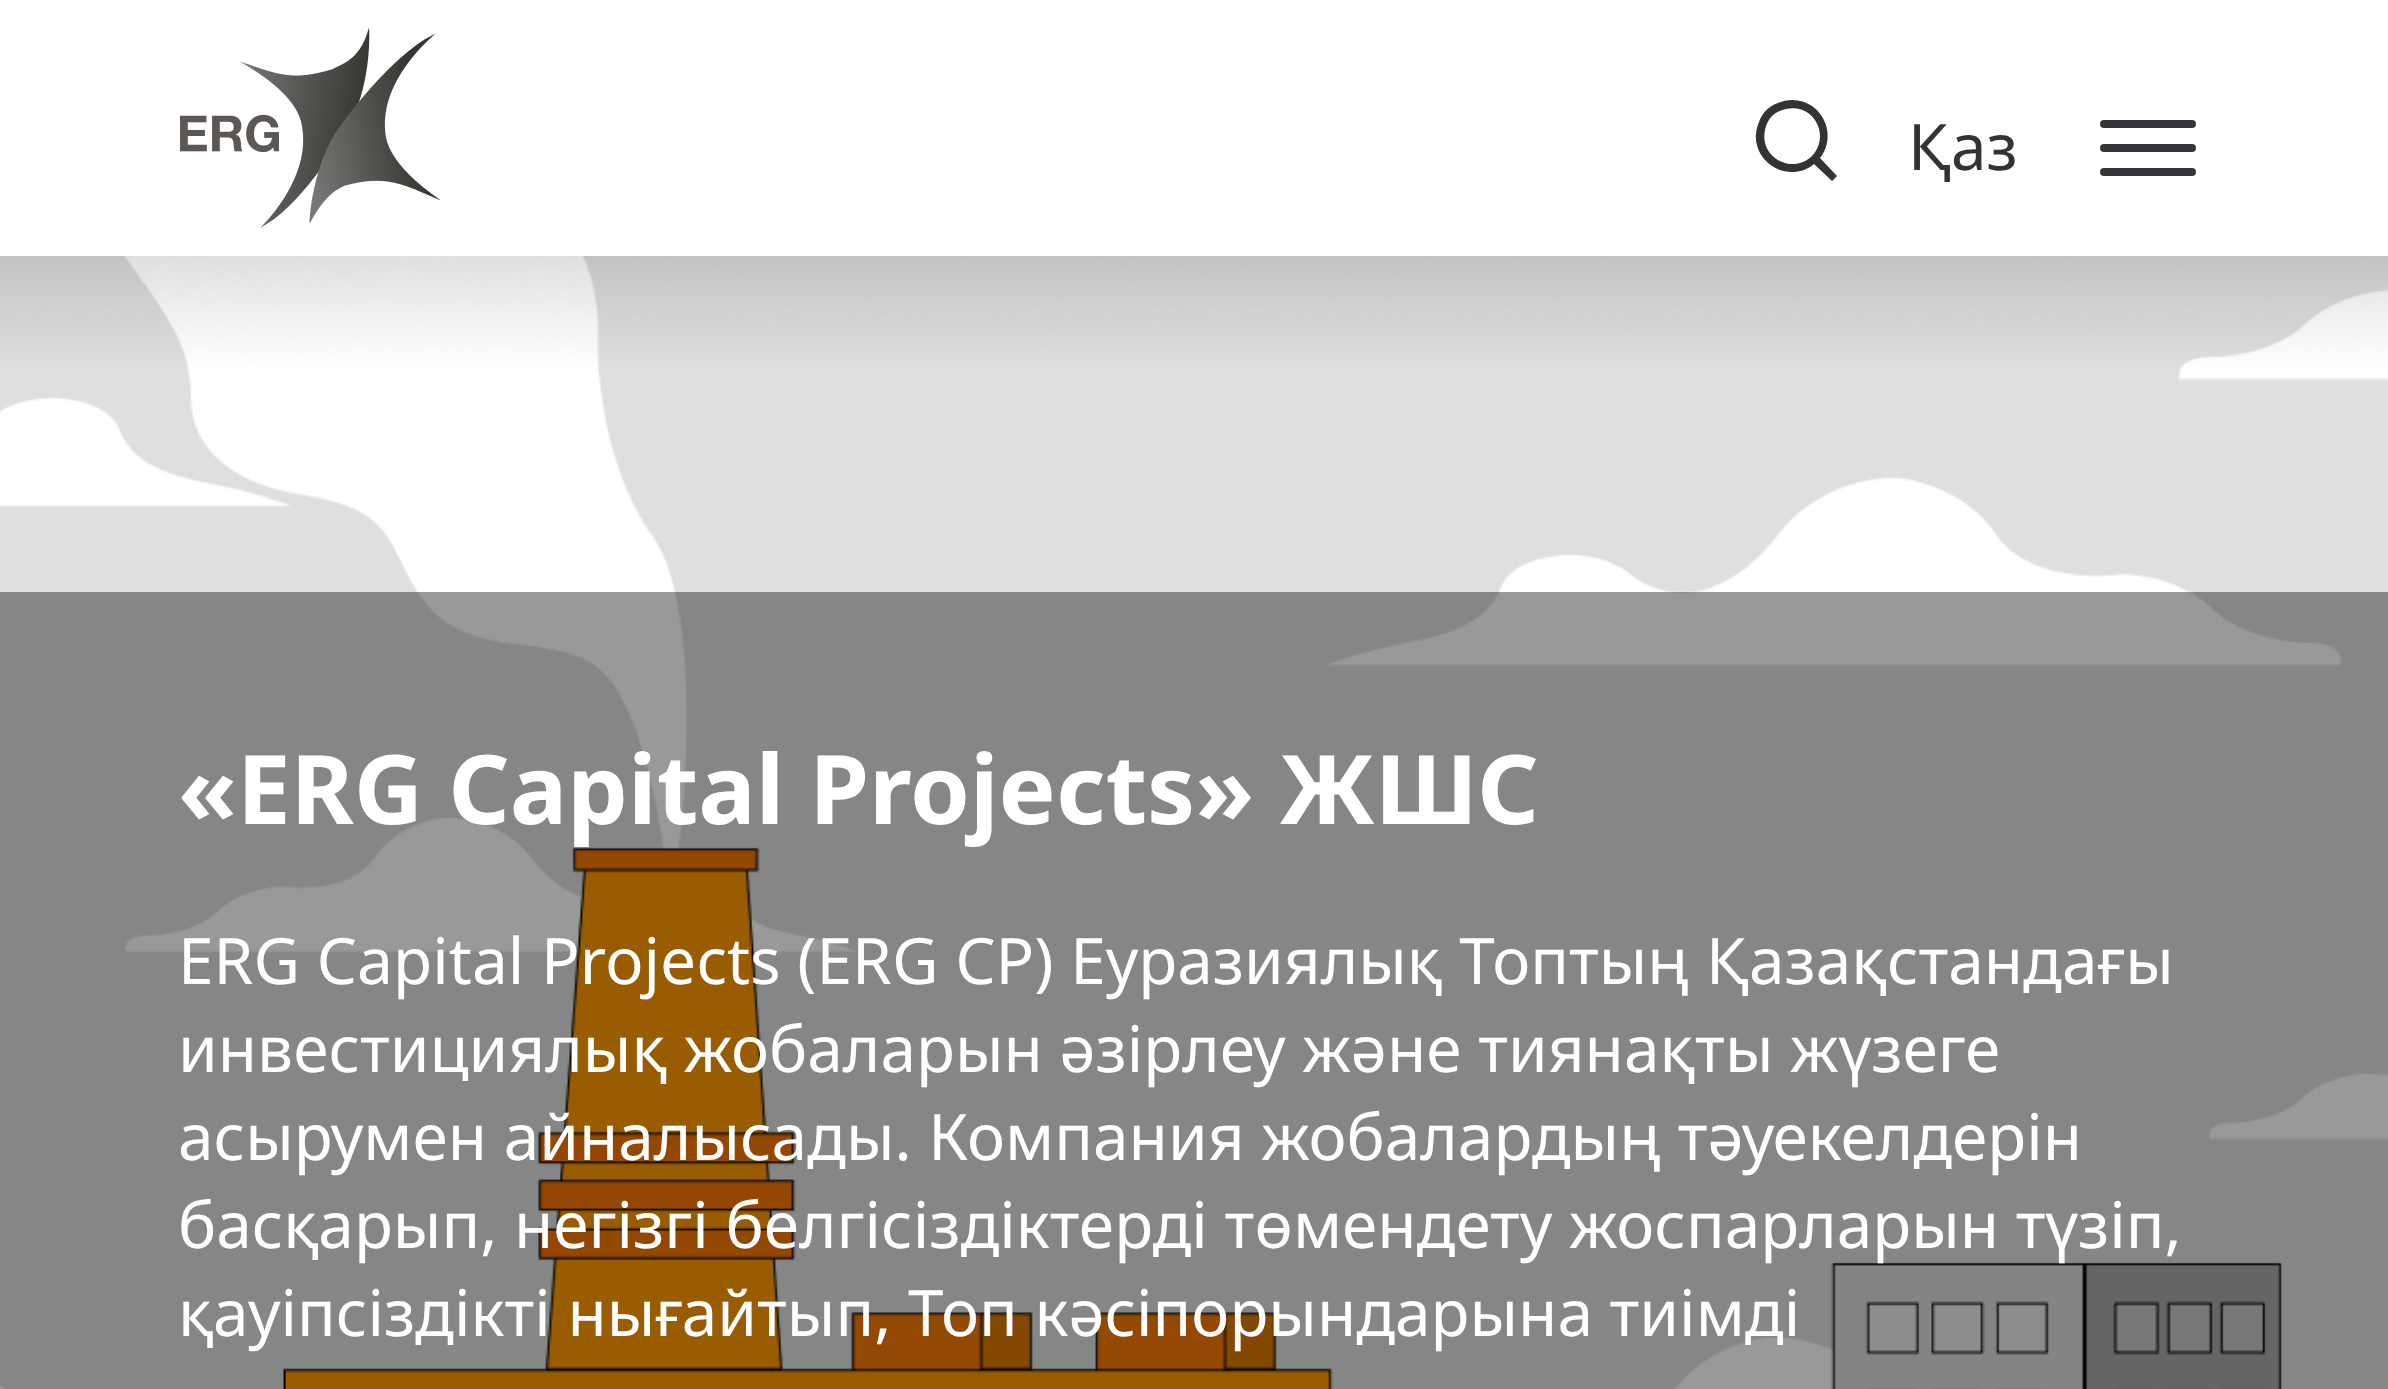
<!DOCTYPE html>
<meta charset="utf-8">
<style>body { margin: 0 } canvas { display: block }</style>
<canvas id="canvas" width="2388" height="1389"></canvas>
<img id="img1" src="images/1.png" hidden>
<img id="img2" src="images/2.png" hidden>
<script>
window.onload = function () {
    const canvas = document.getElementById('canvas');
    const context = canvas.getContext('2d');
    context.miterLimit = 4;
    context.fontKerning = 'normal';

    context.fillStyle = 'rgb(255, 255, 255)';
    context.fillRect(0, 0, 2388, 1389);
    context.drawImage(document.getElementById('img1'), 180, 28, 260, 200);
    context.fillStyle = 'rgb(51, 51, 51)';
    context.beginPath();
    context.moveTo(1820, 158);
    context.lineTo(1837, 176);
    context.lineTo(1832, 181);
    context.lineTo(1814, 164);
    context.bezierCurveTo(1786, 187, 1744, 157, 1759, 122);
    context.bezierCurveTo(1762, 113, 1769, 106, 1778, 103);
    context.bezierCurveTo(1789, 98, 1802, 99, 1812, 106);
    context.bezierCurveTo(1829, 118, 1833, 142, 1820, 158);
    context.closePath();
    context.moveTo(1812, 156);
    context.bezierCurveTo(1831, 136, 1814, 103, 1786, 109);
    context.bezierCurveTo(1781, 110, 1776, 112, 1772, 116);
    context.bezierCurveTo(1768, 120, 1766, 125, 1765, 130);
    context.bezierCurveTo(1759, 158, 1793, 175, 1812, 156);
    context.closePath();
    context.fill();
    context.fillStyle = 'rgb(51, 55, 59)';
    context.beginPath();
    context.roundRect(2100, 120, 96, 8, 4);
    context.fill();
    context.beginPath();
    context.roundRect(2100, 144, 96, 8, 4);
    context.fill();
    context.beginPath();
    context.roundRect(2100, 168, 96, 8, 4);
    context.fill();
    context.drawImage(document.getElementById('img2'), 0, 256, 2388, 1133);
    context.fillStyle = 'rgba(0, 0, 0, 0.4)';
    context.fillRect(0, 592, 2388, 797);
    context.font = '64px Noto Sans';
    context.fillStyle = 'rgb(51, 51, 51)';
    context.fillText('Қаз', 1908, 170);
    context.font = 'bold 96px Noto Sans';
    context.fillStyle = 'rgb(255, 255, 255)';
    context.fillText('«ERG Capital Projects» ЖШС', 178, 824);
    context.font = '64px Noto Sans';
    context.fillText('ERG Capital Projects (ERG CP) Еуразиялық Топтың Қазақстандағы', 178, 984);
    context.fillText('инвестициялық жобаларын әзірлеу және тиянақты жүзеге', 178, 1072);
    context.fillText('асырумен айналысады. Компания жобалардың тәуекелдерін', 178, 1160);
    context.fillText('басқарып, негізгі белгісіздіктерді төмендету жоспарларын түзіп,', 178, 1248);
    context.fillText('қауіпсіздікті нығайтып, Топ кәсіпорындарына тиімді', 178, 1336);
};
</script>
